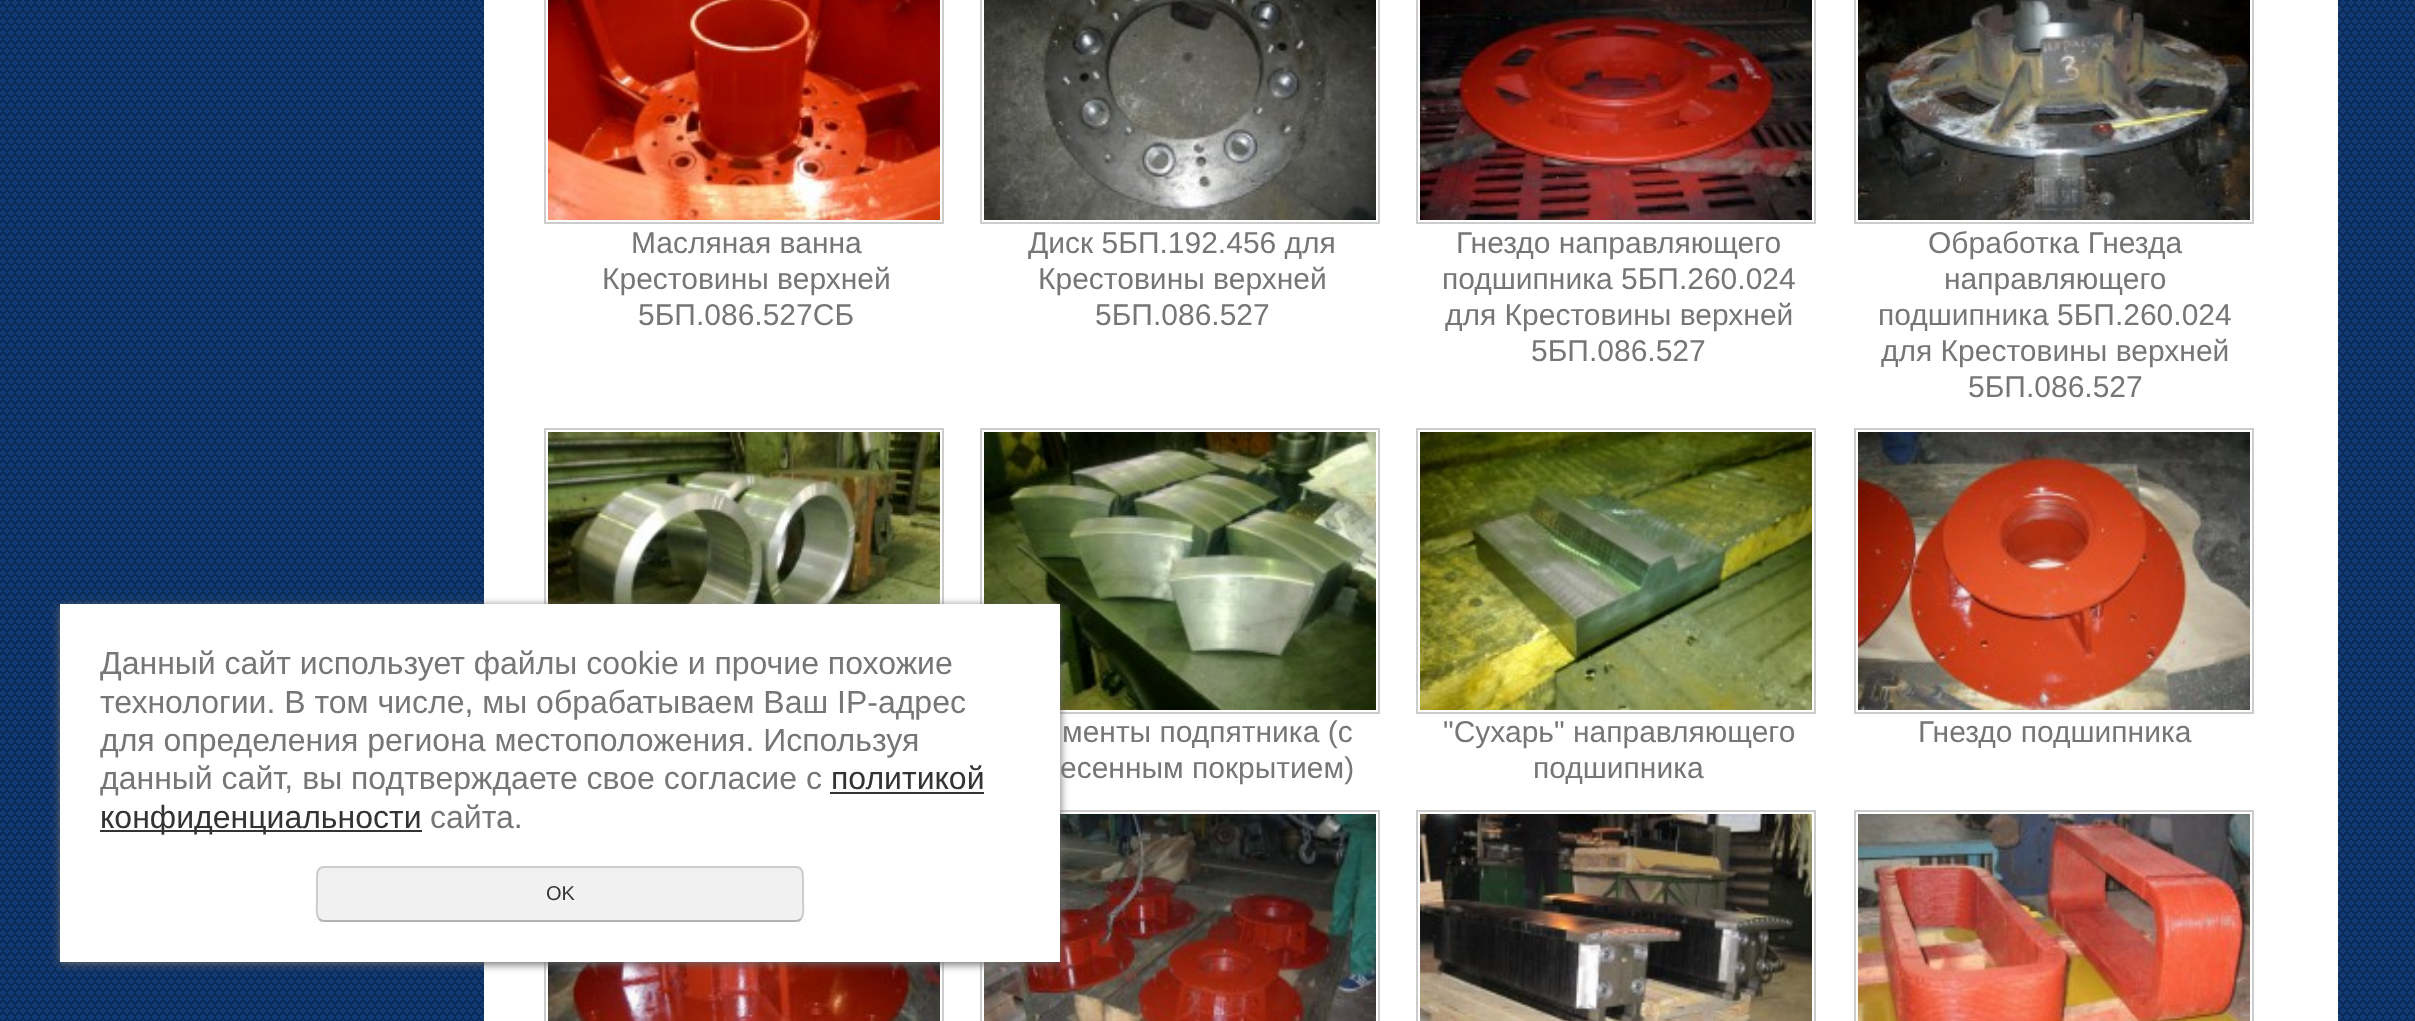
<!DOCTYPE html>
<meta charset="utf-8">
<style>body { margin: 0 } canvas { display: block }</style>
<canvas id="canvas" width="2415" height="1021"></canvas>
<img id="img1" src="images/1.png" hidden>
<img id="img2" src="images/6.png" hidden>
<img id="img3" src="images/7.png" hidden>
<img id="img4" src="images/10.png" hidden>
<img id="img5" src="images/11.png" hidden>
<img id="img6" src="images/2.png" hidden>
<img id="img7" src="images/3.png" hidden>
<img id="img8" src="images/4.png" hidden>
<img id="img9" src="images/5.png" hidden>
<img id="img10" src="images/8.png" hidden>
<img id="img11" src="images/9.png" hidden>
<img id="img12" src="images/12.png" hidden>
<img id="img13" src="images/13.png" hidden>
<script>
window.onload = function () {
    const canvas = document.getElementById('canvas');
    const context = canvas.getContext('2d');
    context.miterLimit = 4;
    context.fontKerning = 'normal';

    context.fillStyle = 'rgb(255, 255, 255)';
    context.fillRect(0, 0, 2415, 1021);
    context.drawImage(document.getElementById('img1'), 0, 0, 2415, 1021);
    context.fillRect(484, 0, 1854, 1021);
    context.strokeStyle = 'rgb(204, 204, 204)';
    context.lineWidth = 2;
    context.strokeRect(545, 429, 398, 284);
    context.drawImage(document.getElementById('img2'), 548, 432, 392, 172);
    context.strokeRect(981, 429, 398, 284);
    context.drawImage(document.getElementById('img3'), 984, 432, 392, 278);
    context.strokeRect(545, 811, 398, 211);
    context.drawImage(document.getElementById('img4'), 548, 962, 392, 59);
    context.strokeRect(981, 811, 398, 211);
    context.drawImage(document.getElementById('img5'), 984, 814, 392, 207);
    context.fillStyle = 'rgb(102, 102, 102)';
    context.filter = 'blur(5px)';
    context.beginPath();
    context.rect(60, 606, 1000, 358);
    context.fill();
    context.filter = 'none';
    context.fillStyle = 'rgb(255, 255, 255)';
    context.fillRect(60, 604, 1000, 358);
    context.fillStyle = 'rgb(51, 51, 51)';
    context.fillRect(830, 792, 154, 2);
    context.fillRect(100, 830, 322, 2);
    context.fillStyle = 'rgb(241, 241, 241)';
    context.beginPath();
    context.roundRect(316, 866, 488, 56, 8);
    context.fill();
    context.beginPath();
    context.moveTo(801, 919);
    context.bezierCurveTo(799.5, 920.5, 798, 921, 796, 921);
    context.lineTo(324, 921);
    context.bezierCurveTo(322, 921, 320.5, 920.5, 319, 919);
    context.strokeStyle = 'rgb(179, 179, 179)';
    context.stroke();
    context.beginPath();
    context.moveTo(319, 919);
    context.bezierCurveTo(315.5, 915, 317, 905, 317, 900.5);
    context.lineTo(317, 880.5);
    context.bezierCurveTo(317, 875.5, 316.5, 867, 324, 867);
    context.lineTo(796, 867);
    context.bezierCurveTo(803.5, 867, 803, 875.5, 803, 880.5);
    context.lineTo(803, 900.5);
    context.bezierCurveTo(803, 905, 804.5, 915, 801, 919);
    context.strokeStyle = 'rgb(204, 204, 204)';
    context.stroke();
    context.strokeRect(545, -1, 398, 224);
    context.drawImage(document.getElementById('img6'), 548, 0, 392, 220);
    context.strokeRect(981, -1, 398, 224);
    context.drawImage(document.getElementById('img7'), 984, 0, 392, 220);
    context.strokeRect(1417, -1, 398, 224);
    context.drawImage(document.getElementById('img8'), 1420, 0, 392, 220);
    context.strokeRect(1855, -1, 398, 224);
    context.drawImage(document.getElementById('img9'), 1858, 0, 392, 220);
    context.strokeRect(1417, 429, 398, 284);
    context.drawImage(document.getElementById('img10'), 1420, 432, 392, 278);
    context.strokeRect(1855, 429, 398, 284);
    context.drawImage(document.getElementById('img11'), 1858, 432, 392, 278);
    context.strokeRect(1417, 811, 398, 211);
    context.drawImage(document.getElementById('img12'), 1420, 814, 392, 207);
    context.strokeRect(1855, 811, 398, 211);
    context.drawImage(document.getElementById('img13'), 1858, 814, 392, 207);
    context.font = '32px Liberation Sans';
    context.fillStyle = 'rgb(118, 118, 118)';
    context.fillText('Данный сайт использует файлы cookie и прочие похожие', 100, 674);
    context.fillText('технологии. В том числе, мы обрабатываем Ваш IP-адрес', 100, 713);
    context.fillText('для определения региона местоположения. Используя', 100, 751);
    context.fillText('данный сайт, вы подтверждаете свое согласие с', 100, 789);
    context.fillStyle = 'rgb(51, 51, 51)';
    context.fillText('политикой', 831, 789);
    context.fillText('конфиденциальности', 100, 828);
    context.fillStyle = 'rgb(118, 118, 118)';
    context.fillText('сайта.', 430, 828);
    context.font = '20px Liberation Sans';
    context.fillStyle = 'rgb(51, 51, 51)';
    context.fillText('OK', 546, 900);
    context.font = '30px Liberation Sans';
    context.fillStyle = 'rgb(118, 118, 118)';
    context.fillText('Масляная ванна', 631, 253);
    context.fillText('Крестовины верхней', 602, 289);
    context.fillText('5БП.086.527СБ', 638, 325);
    context.fillText('Диск 5БП.192.456 для', 1028, 253);
    context.fillText('Крестовины верхней', 1038, 289);
    context.fillText('5БП.086.527', 1095, 325);
    context.fillText('Гнездо направляющего', 1456, 253);
    context.fillText('подшипника 5БП.260.024', 1442, 289);
    context.fillText('для Крестовины верхней', 1445, 325);
    context.fillText('5БП.086.527', 1531, 361);
    context.fillText('Обработка Гнезда', 1928, 253);
    context.fillText('направляющего', 1944, 289);
    context.fillText('подшипника 5БП.260.024', 1878, 325);
    context.fillText('для Крестовины верхней', 1881, 361);
    context.fillText('5БП.086.527', 1968, 397);
    context.fillText('менты подпятника (с', 1062, 742);
    context.fillText('есенным покрытием)', 1060, 778);
    context.fillText('"Сухарь" направляющего', 1443, 742);
    context.fillText('подшипника', 1533, 778);
    context.fillText('Гнездо подшипника', 1918, 742);
};
</script>
